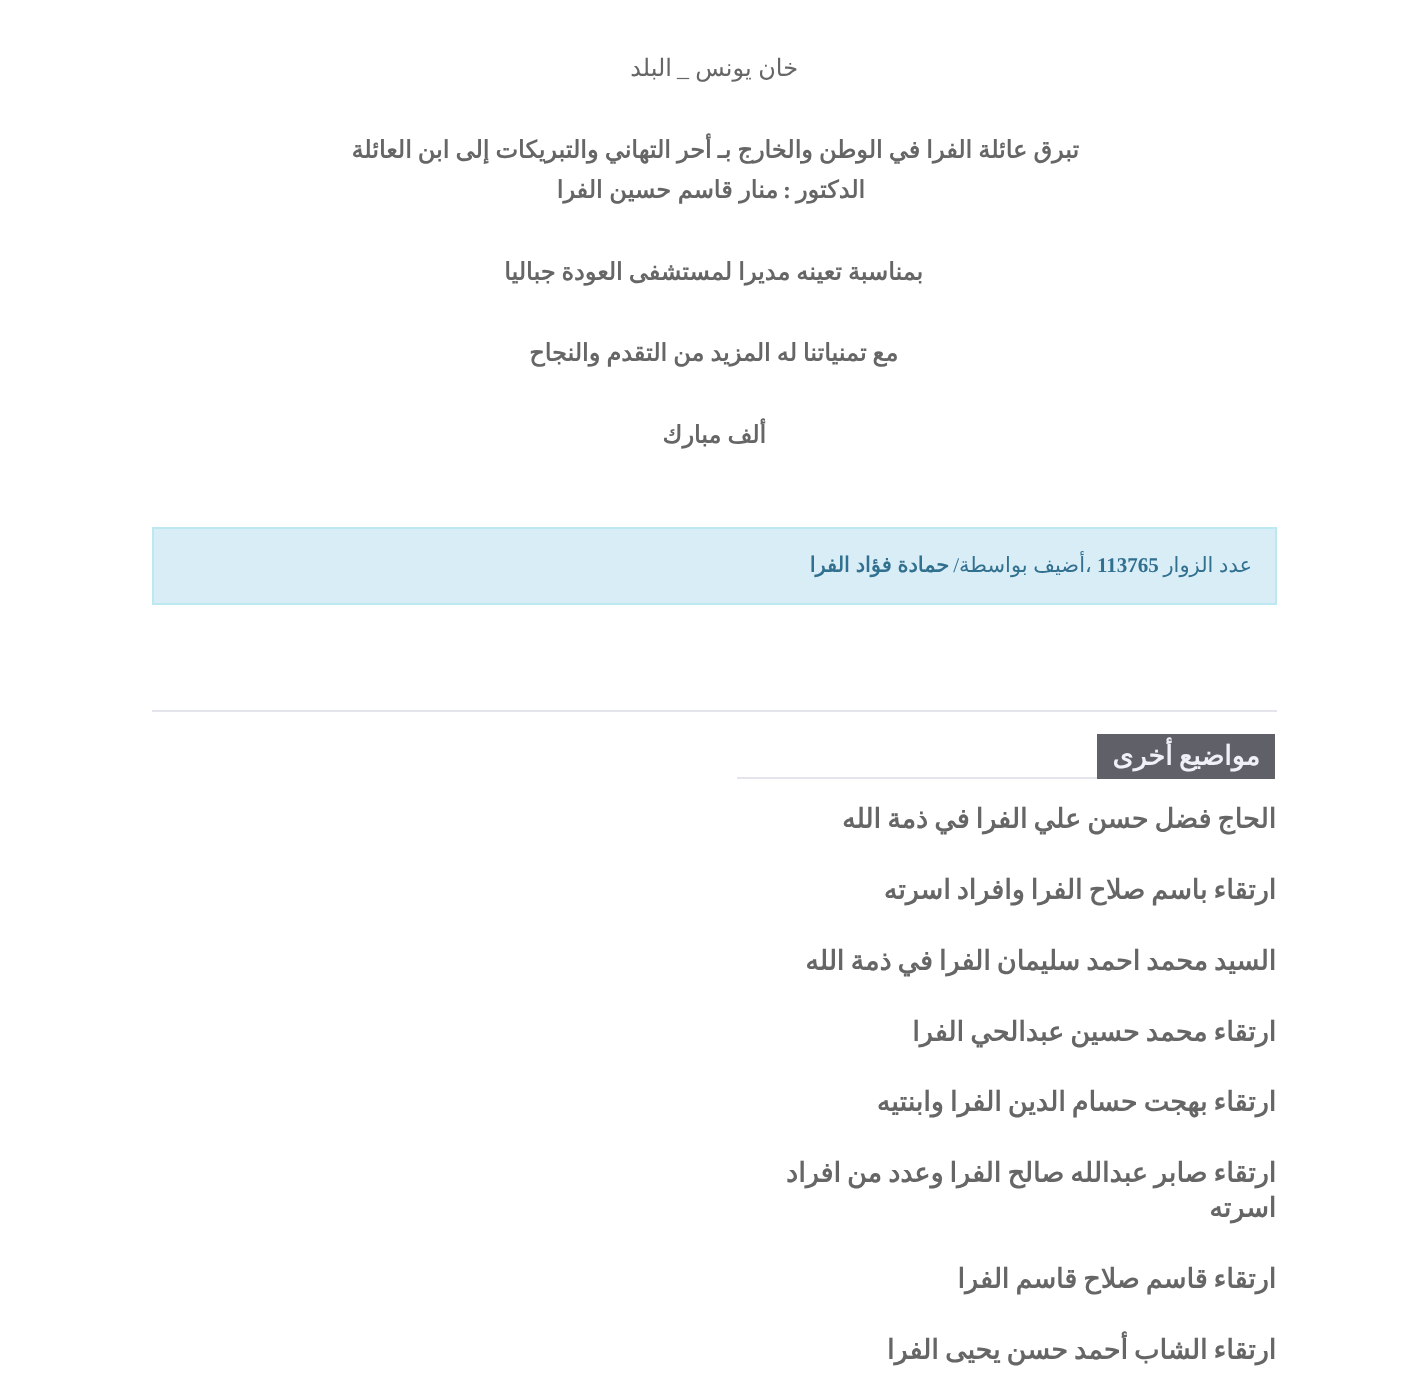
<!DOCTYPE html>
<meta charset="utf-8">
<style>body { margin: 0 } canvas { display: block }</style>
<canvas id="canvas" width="1427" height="1375"></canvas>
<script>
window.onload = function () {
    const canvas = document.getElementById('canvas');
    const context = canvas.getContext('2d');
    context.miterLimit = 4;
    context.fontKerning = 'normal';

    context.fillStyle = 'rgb(255, 255, 255)';
    context.fillRect(0, 0, 1427, 1375);
    context.fillStyle = 'rgb(217, 237, 247)';
    context.beginPath();
    context.rect(153, 528, 1123, 76);
    context.fill();
    context.strokeStyle = 'rgb(188, 232, 241)';
    context.lineWidth = 2;
    context.stroke();
    context.fillStyle = 'rgb(228, 228, 236)';
    context.fillRect(152, 710, 1125, 2);
    context.fillRect(737, 777, 360, 2);
    context.fillStyle = 'rgb(96, 96, 104)';
    context.fillRect(1097, 734, 178, 45);
    context.wordSpacing = '-1px';
    context.direction = 'rtl';
    context.font = '24px DejaVu Sans';
    context.fillStyle = 'rgb(102, 102, 102)';
    context.fillText('خان يونس', 798, 76);
    context.wordSpacing = '0px';
    context.font = '24px Liberation Serif';
    context.fillText('_', 689, 76);
    context.font = '24px DejaVu Sans';
    context.fillText('البلد', 672, 76);
    context.wordSpacing = '-1.6px';
    context.font = 'bold 24px DejaVu Sans';
    context.fillText('تبرق عائلة الفرا في الوطن والخارج بـ أحر التهاني والتبريكات إلى ابن العائلة', 1079, 158);
    context.wordSpacing = '0px';
    context.fillText('الدكتور', 865, 198);
    context.font = 'bold 24px Liberation Serif';
    context.fillText(':', 791, 198);
    context.wordSpacing = '-1px';
    context.font = 'bold 24px DejaVu Sans';
    context.fillText('منار قاسم حسين الفرا', 778, 198);
    context.wordSpacing = '-1.6px';
    context.fillText('بمناسبة تعينه مديرا لمستشفى العودة جباليا', 923, 280);
    context.fillText('مع تمنياتنا له المزيد من التقدم والنجاح', 898, 361);
    context.fillText('ألف مبارك', 766, 443);
    context.wordSpacing = '-1px';
    context.font = '21px DejaVu Sans';
    context.fillStyle = 'rgb(49, 112, 143)';
    context.fillText('عدد الزوار', 1252, 572);
    context.wordSpacing = '0px';
    context.direction = 'ltr';
    context.font = 'bold 21px Liberation Serif';
    context.fillText('113765', 1097, 572);
    context.font = '21px DejaVu Sans';
    context.fillText('،', 1085, 572);
    context.wordSpacing = '-1px';
    context.direction = 'rtl';
    context.fillText('أضيف بواسطة', 1085, 572);
    context.wordSpacing = '0px';
    context.font = '21px Liberation Serif';
    context.fillText('/', 959, 572);
    context.wordSpacing = '-1px';
    context.font = 'bold 21px DejaVu Sans';
    context.fillText('حمادة فؤاد الفرا', 949, 572);
    context.wordSpacing = '-2.5px';
    context.font = 'bold 27px DejaVu Sans';
    context.fillStyle = 'rgb(240, 240, 248)';
    context.fillText('مواضيع أخرى', 1260, 765);
    context.fillStyle = 'rgb(102, 102, 102)';
    context.fillText('الحاج فضل حسن علي الفرا في ذمة الله', 1276, 828);
    context.fillText('ارتقاء باسم صلاح الفرا وافراد اسرته', 1276, 899);
    context.fillText('السيد محمد احمد سليمان الفرا في ذمة الله', 1276, 970);
    context.fillText('ارتقاء محمد حسين عبدالحي الفرا', 1276, 1041);
    context.fillText('ارتقاء بهجت حسام الدين الفرا وابنتيه', 1276, 1111);
    context.fillText('ارتقاء صابر عبدالله صالح الفرا وعدد من افراد', 1276, 1182);
    context.wordSpacing = '0px';
    context.fillText('اسرته', 1276, 1217);
    context.wordSpacing = '-2.5px';
    context.fillText('ارتقاء قاسم صلاح قاسم الفرا', 1276, 1288);
    context.fillText('ارتقاء الشاب أحمد حسن يحيى الفرا', 1276, 1359);
};
</script>
